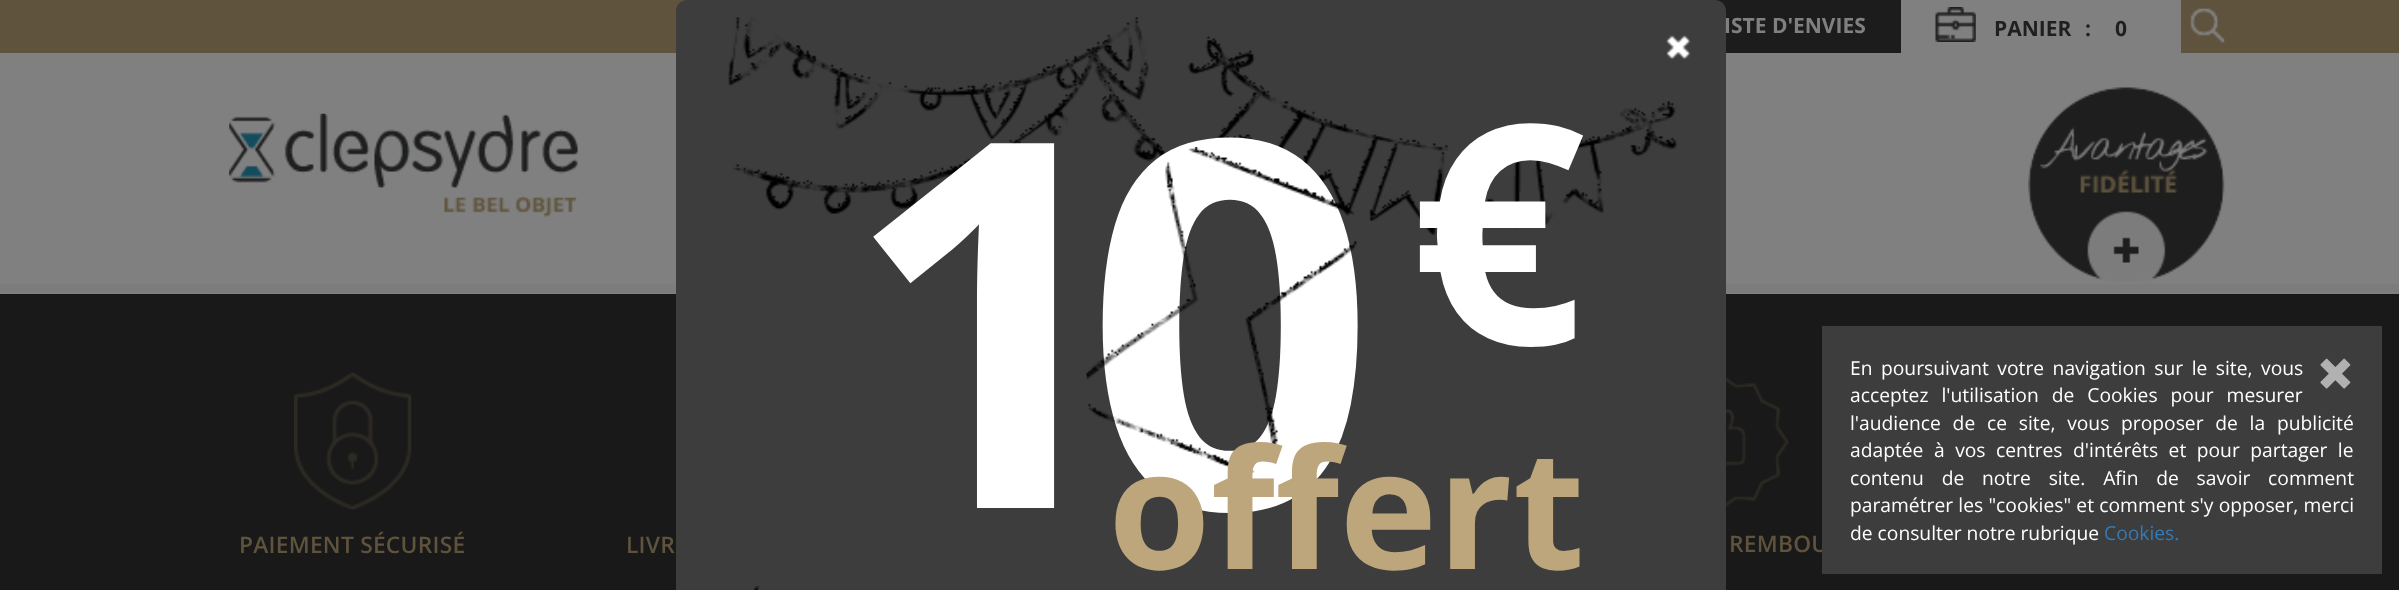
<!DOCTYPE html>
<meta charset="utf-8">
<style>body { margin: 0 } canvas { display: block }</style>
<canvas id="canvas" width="2399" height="590"></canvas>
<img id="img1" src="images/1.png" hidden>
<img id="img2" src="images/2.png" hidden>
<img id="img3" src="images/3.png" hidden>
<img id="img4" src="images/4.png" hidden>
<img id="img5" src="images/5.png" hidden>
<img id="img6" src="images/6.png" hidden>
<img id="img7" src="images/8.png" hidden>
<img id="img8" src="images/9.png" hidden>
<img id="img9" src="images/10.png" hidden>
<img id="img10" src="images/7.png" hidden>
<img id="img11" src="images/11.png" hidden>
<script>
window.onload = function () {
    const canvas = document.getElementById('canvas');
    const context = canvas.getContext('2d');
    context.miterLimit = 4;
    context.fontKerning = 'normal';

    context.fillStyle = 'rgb(124, 124, 124)';
    context.fillRect(0, 0, 2399, 590);
    context.fillStyle = 'rgb(128, 128, 128)';
    context.fillRect(0, 53, 2399, 231);
    context.fillStyle = 'rgb(95, 83, 62)';
    context.fillRect(0, 0, 2399, 53);
    context.fillStyle = 'rgb(28, 28, 28)';
    context.fillRect(1715, 0, 186, 53);
    context.fillStyle = 'rgb(128, 128, 128)';
    context.fillRect(1901, 0, 280, 53);
    context.drawImage(document.getElementById('img1'), 1935, 7, 41, 35);
    context.drawImage(document.getElementById('img2'), 2190, 8, 35, 35);
    context.drawImage(document.getElementById('img3'), 229, 113, 349, 104);
    context.drawImage(document.getElementById('img4'), 2028, 87, 197, 195);
    context.fillRect(0, 292, 2399, 2);
    context.fillStyle = 'rgb(124, 124, 124)';
    context.fillRect(203, 292, 1995, 1);
    context.fillStyle = 'rgb(25, 25, 25)';
    context.fillRect(0, 294, 2399, 296);
    context.fillStyle = 'rgb(61, 61, 61)';
    context.beginPath();
    context.moveTo(687, 0);
    context.lineTo(1715, 0);
    context.bezierCurveTo(1721, 0, 1726, 5, 1726, 11);
    context.lineTo(1726, 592);
    context.lineTo(676, 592);
    context.lineTo(676, 11);
    context.bezierCurveTo(676, 5, 681, 0, 687, 0);
    context.closePath();
    context.fill();
    context.drawImage(document.getElementById('img5'), 728, 17, 949, 218);
    context.drawImage(document.getElementById('img6'), 1666, 35, 25, 25);
    context.drawImage(document.getElementById('img7'), 753, 586, 7, 4);
    context.drawImage(document.getElementById('img8'), 294, 372, 118, 138);
    context.drawImage(document.getElementById('img9'), 1726, 377, 63, 130);
    context.font = 'bold 21px Open Sans';
    context.fillStyle = 'rgb(128, 128, 128)';
    context.fillText('ISTE D\'ENVIES', 1724, 33);
    context.fillStyle = 'rgb(31, 31, 31)';
    context.fillText('PANIER', 1994, 36);
    context.fillText(':', 2085, 36);
    context.fillText('0', 2115, 36);
    context.letterSpacing = '-51px';
    context.font = 'bold 511px Open Sans';
    context.fillStyle = 'rgb(255, 255, 255)';
    context.fillText('10', 843, 508);
    context.font = 'bold 307px Open Sans';
    context.fillText('€', 1410, 344);
    context.drawImage(document.getElementById('img10'), 1086, 147, 271, 326);
    context.letterSpacing = '0px';
    context.font = 'bold 166px Open Sans';
    context.fillStyle = 'rgb(189, 166, 124)';
    context.fillText('offert', 1108, 569);
    context.letterSpacing = '0.25px';
    context.font = '600 22.75px Open Sans';
    context.fillStyle = 'rgb(95, 83, 62)';
    context.fillText('PAIEMENT SÉCURISÉ', 239, 553);
    context.fillText('LIVR', 626, 553);
    context.fillText('REMBOU', 1729, 552);
    context.fillStyle = 'rgb(61, 61, 61)';
    context.fillRect(1822, 326, 560, 248);
    context.drawImage(document.getElementById('img11'), 2320, 358, 31, 31);
    context.letterSpacing = '0px';
    context.wordSpacing = '3.5px';
    context.font = '19.25px Open Sans';
    context.fillStyle = 'rgb(255, 255, 255)';
    context.fillText('En poursuivant votre navigation sur le site, vous', 1850, 375);
    context.wordSpacing = '8px';
    context.fillText('acceptez l\'utilisation de Cookies pour mesurer', 1850, 402);
    context.wordSpacing = '6.75px';
    context.fillText('l\'audience de ce site, vous proposer de la publicité', 1850, 430);
    context.wordSpacing = '5.5px';
    context.fillText('adaptée à vos centres d\'intérêts et pour partager le', 1850, 457);
    context.wordSpacing = '12.75px';
    context.fillText('contenu de notre site. Afin de savoir comment', 1850, 485);
    context.wordSpacing = '0.25px';
    context.fillText('paramétrer les "cookies" et comment s\'y opposer, merci', 1850, 512);
    context.wordSpacing = '0px';
    context.fillText('de consulter notre rubrique', 1850, 540);
    context.fillStyle = 'rgb(51, 122, 183)';
    context.fillText('Cookies.', 2104, 540);
};
</script>
